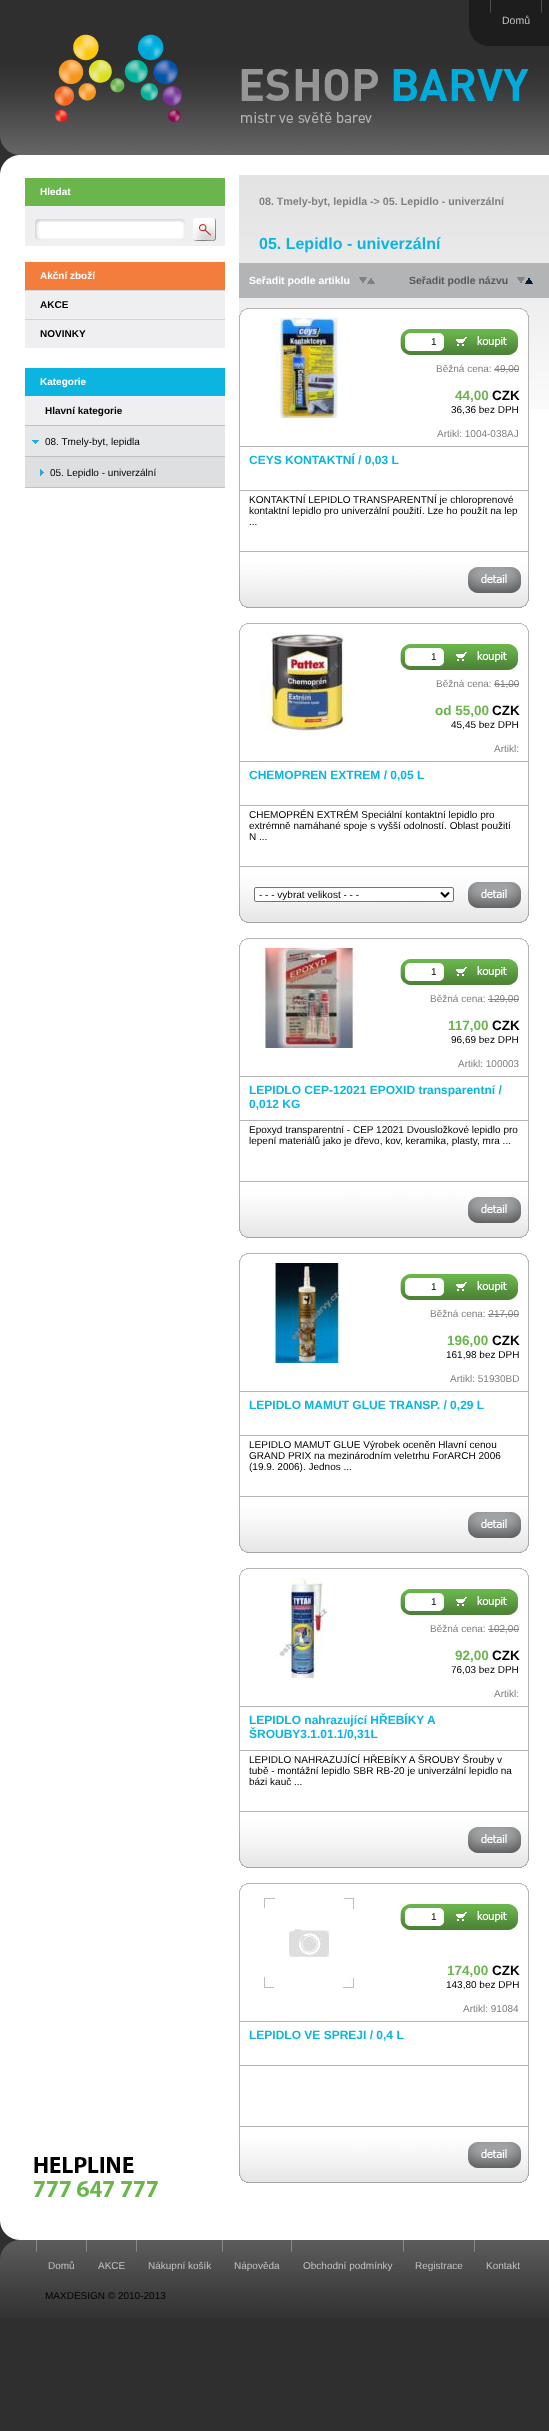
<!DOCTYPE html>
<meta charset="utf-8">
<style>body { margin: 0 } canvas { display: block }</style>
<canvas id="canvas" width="549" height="2431"></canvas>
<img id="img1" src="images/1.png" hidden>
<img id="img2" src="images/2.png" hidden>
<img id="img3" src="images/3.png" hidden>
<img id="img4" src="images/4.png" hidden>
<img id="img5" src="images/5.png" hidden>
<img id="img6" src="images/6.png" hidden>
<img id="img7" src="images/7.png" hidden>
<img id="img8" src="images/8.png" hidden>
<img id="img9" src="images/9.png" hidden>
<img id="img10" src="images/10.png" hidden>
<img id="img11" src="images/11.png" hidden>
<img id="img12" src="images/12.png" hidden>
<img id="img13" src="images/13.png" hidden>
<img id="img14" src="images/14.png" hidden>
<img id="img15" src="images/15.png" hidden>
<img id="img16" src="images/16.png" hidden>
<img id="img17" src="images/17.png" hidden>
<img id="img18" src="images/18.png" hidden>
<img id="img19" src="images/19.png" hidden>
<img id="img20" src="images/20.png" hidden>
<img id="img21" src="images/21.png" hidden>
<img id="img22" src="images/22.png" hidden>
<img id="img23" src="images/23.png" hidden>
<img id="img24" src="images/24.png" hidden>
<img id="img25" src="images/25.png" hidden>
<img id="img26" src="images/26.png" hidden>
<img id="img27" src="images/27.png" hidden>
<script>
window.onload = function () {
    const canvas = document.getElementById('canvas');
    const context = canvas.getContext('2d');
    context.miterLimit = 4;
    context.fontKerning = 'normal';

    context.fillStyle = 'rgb(47, 47, 47)';
    context.fillRect(0, 0, 549, 2431);
    context.drawImage(document.getElementById('img1'), 0, 0, 549, 155);
    context.fillStyle = 'rgb(29, 29, 29)';
    context.fillRect(469, 0, 80, 46);
    context.drawImage(document.getElementById('img2'), 469, 29, 17, 17);
    context.drawImage(document.getElementById('img3'), 490, 0, 1, 13);
    context.drawImage(document.getElementById('img3'), 541, 0, 1, 13);
    context.drawImage(document.getElementById('img4'), 52, 31, 129, 89);
    context.fillStyle = 'rgb(255, 255, 255)';
    context.fillRect(0, 155, 549, 2060);
    context.drawImage(document.getElementById('img5'), 0, 155, 19, 20);
    context.fillStyle = 'rgb(106, 181, 76)';
    context.fillRect(25, 178, 200, 28);
    context.drawImage(document.getElementById('img6'), 25, 206, 200, 40);
    context.fillStyle = 'rgb(255, 255, 255)';
    context.fillRect(40, 222, 140, 16);
    context.drawImage(document.getElementById('img7'), 193, 218, 23, 23);
    context.fillStyle = 'rgb(243, 125, 61)';
    context.fillRect(25, 262, 200, 28);
    context.fillStyle = 'rgb(239, 239, 241)';
    context.fillRect(25, 291, 200, 57);
    context.fillStyle = 'rgb(211, 211, 211)';
    context.fillRect(25, 290, 200, 1);
    context.fillRect(25, 319, 200, 1);
    context.fillStyle = 'rgb(12, 181, 224)';
    context.fillRect(25, 368, 200, 28);
    context.fillStyle = 'rgb(239, 239, 241)';
    context.fillRect(25, 396, 200, 29);
    context.fillStyle = 'rgb(192, 192, 192)';
    context.fillRect(25, 425, 200, 1);
    context.fillStyle = 'rgb(230, 231, 232)';
    context.fillRect(25, 426, 200, 30);
    context.fillStyle = 'rgb(192, 192, 192)';
    context.fillRect(25, 456, 200, 1);
    context.drawImage(document.getElementById('img8'), 32, 440, 7, 4);
    context.fillStyle = 'rgb(222, 223, 224)';
    context.fillRect(25, 457, 200, 30);
    context.fillStyle = 'rgb(192, 192, 192)';
    context.fillRect(25, 487, 200, 1);
    context.drawImage(document.getElementById('img9'), 40, 469, 4, 7);
    context.drawImage(document.getElementById('img10'), 239, 175, 310, 234);
    context.fillStyle = 'rgb(179, 180, 182)';
    context.fillRect(239, 263, 310, 35);
    context.drawImage(document.getElementById('img11'), 359, 277, 8, 6);
    context.drawImage(document.getElementById('img12'), 367, 278, 8, 6);
    context.drawImage(document.getElementById('img11'), 517, 277, 8, 6);
    context.drawImage(document.getElementById('img13'), 525, 278, 8, 6);
    context.drawImage(document.getElementById('img14'), 239, 308, 290, 300);
    context.drawImage(document.getElementById('img15'), 274, 318, 66, 100);
    context.drawImage(document.getElementById('img16'), 400, 329, 118, 26);
    context.fillStyle = 'rgb(128, 128, 128)';
    context.fillRect(494, 369, 25, 1);
    context.drawImage(document.getElementById('img17'), 468, 567, 53, 26);
    context.drawImage(document.getElementById('img18'), 239, 623, 290, 300);
    context.drawImage(document.getElementById('img19'), 259, 633, 96, 100);
    context.drawImage(document.getElementById('img16'), 400, 644, 118, 26);
    context.fillStyle = 'rgb(255, 255, 255)';
    context.beginPath();
    context.roundRect(254.5, 887.5, 199, 14, 1.5);
    context.fill();
    context.strokeStyle = 'rgb(118, 118, 118)';
    context.stroke();
    context.beginPath();
    context.moveTo(441, 892.5);
    context.lineTo(445, 896.5);
    context.lineTo(449, 892.5);
    context.strokeStyle = 'rgb(0, 0, 0)';
    context.lineWidth = 2;
    context.stroke();
    context.fillStyle = 'rgb(128, 128, 128)';
    context.fillRect(494, 684, 25, 1);
    context.drawImage(document.getElementById('img17'), 468, 882, 53, 26);
    context.drawImage(document.getElementById('img18'), 239, 938, 290, 300);
    context.drawImage(document.getElementById('img20'), 259, 948, 96, 100);
    context.drawImage(document.getElementById('img16'), 400, 959, 118, 26);
    context.fillRect(488, 999, 31, 1);
    context.drawImage(document.getElementById('img17'), 468, 1197, 53, 26);
    context.drawImage(document.getElementById('img18'), 239, 1253, 290, 300);
    context.drawImage(document.getElementById('img21'), 274, 1263, 67, 100);
    context.drawImage(document.getElementById('img16'), 400, 1274, 118, 26);
    context.fillRect(488, 1314, 31, 1);
    context.drawImage(document.getElementById('img17'), 468, 1512, 53, 26);
    context.drawImage(document.getElementById('img18'), 239, 1568, 290, 300);
    context.drawImage(document.getElementById('img22'), 275, 1578, 56, 100);
    context.drawImage(document.getElementById('img16'), 400, 1589, 118, 26);
    context.fillRect(488, 1629, 31, 1);
    context.drawImage(document.getElementById('img17'), 468, 1827, 53, 26);
    context.drawImage(document.getElementById('img18'), 239, 1883, 290, 300);
    context.drawImage(document.getElementById('img23'), 261, 1895, 94, 94);
    context.drawImage(document.getElementById('img16'), 400, 1904, 118, 26);
    context.drawImage(document.getElementById('img17'), 468, 2142, 53, 26);
    context.drawImage(document.getElementById('img24'), 0, 2215, 549, 25);
    context.drawImage(document.getElementById('img25'), 34, 2157, 124, 40);
    context.drawImage(document.getElementById('img26'), 0, 2240, 549, 78);
    context.drawImage(document.getElementById('img27'), 36, 2240, 1, 12);
    context.drawImage(document.getElementById('img27'), 86, 2240, 1, 12);
    context.drawImage(document.getElementById('img27'), 136, 2240, 1, 12);
    context.drawImage(document.getElementById('img27'), 222, 2240, 1, 12);
    context.drawImage(document.getElementById('img27'), 291, 2240, 1, 12);
    context.drawImage(document.getElementById('img27'), 403, 2240, 1, 12);
    context.drawImage(document.getElementById('img27'), 474, 2240, 1, 12);
    context.font = '10.5px Liberation Sans';
    context.fillStyle = 'rgb(192, 192, 192)';
    context.fillText('Domů', 502, 24);
    context.font = 'bold 10px Liberation Sans';
    context.fillStyle = 'rgb(255, 255, 255)';
    context.fillText('Hledat', 40, 195);
    context.fillText('Akční zboží', 40, 279);
    context.fillStyle = 'rgb(0, 0, 0)';
    context.fillText('AKCE', 40, 308);
    context.fillText('NOVINKY', 40, 337);
    context.fillStyle = 'rgb(255, 255, 255)';
    context.fillText('Kategorie', 40, 385);
    context.fillStyle = 'rgb(0, 0, 0)';
    context.fillText('Hlavní kategorie', 45, 414);
    context.font = '10px Liberation Sans';
    context.fillText('08. Tmely-byt, lepidla', 45, 445);
    context.fillText('05. Lepidlo - univerzální', 50, 476);
    context.font = 'bold 10.7px Liberation Sans';
    context.fillStyle = 'rgb(128, 128, 128)';
    context.fillText('08. Tmely-byt, lepidla -> 05. Lepidlo - univerzální', 259, 205);
    context.font = 'bold 16px Liberation Sans';
    context.fillStyle = 'rgb(12, 181, 224)';
    context.fillText('05. Lepidlo - univerzální', 259, 249);
    context.font = 'bold 10.5px Liberation Sans';
    context.fillStyle = 'rgb(255, 255, 255)';
    context.fillText('Seřadit podle artiklu', 249, 284);
    context.fillStyle = 'rgb(88, 89, 91)';
    context.fillText('Seřadit podle názvu', 409, 284);
    context.font = '10px Liberation Sans';
    context.fillStyle = 'rgb(0, 0, 0)';
    context.fillText('1', 431, 345);
    context.fillStyle = 'rgb(128, 128, 128)';
    context.fillText('Běžná cena: 49,00', 436, 372);
    context.font = 'bold 13.5px Liberation Sans';
    context.fillStyle = 'rgb(106, 181, 76)';
    context.fillText('44,00', 455, 400);
    context.fillStyle = 'rgb(0, 0, 0)';
    context.fillText('CZK', 492, 400);
    context.font = '10px Liberation Sans';
    context.fillText('36,36 bez DPH', 451, 413);
    context.fillStyle = 'rgb(128, 128, 128)';
    context.fillText('Artikl: 1004-038AJ', 437, 437);
    context.font = 'bold 12px Liberation Sans';
    context.fillStyle = 'rgb(12, 181, 224)';
    context.fillText('CEYS KONTAKTNÍ / 0,03 L', 249, 464);
    context.font = '10px Liberation Sans';
    context.fillStyle = 'rgb(0, 0, 0)';
    context.fillText('KONTAKTNÍ LEPIDLO TRANSPARENTNÍ je chloroprenové', 249, 503);
    context.fillText('kontaktní lepidlo pro univerzální použití. Lze ho použít na lep', 249, 514);
    context.fillText('...', 249, 525);
    context.fillText('1', 431, 660);
    context.fillText('- - - vybrat velikost - - -', 259, 898);
    context.fillStyle = 'rgb(128, 128, 128)';
    context.fillText('Běžná cena: 61,00', 436, 687);
    context.font = 'bold 13.5px Liberation Sans';
    context.fillStyle = 'rgb(106, 181, 76)';
    context.fillText('od 55,00', 435, 715);
    context.fillStyle = 'rgb(0, 0, 0)';
    context.fillText('CZK', 492, 715);
    context.font = '10px Liberation Sans';
    context.fillText('45,45 bez DPH', 451, 728);
    context.fillStyle = 'rgb(128, 128, 128)';
    context.fillText('Artikl:', 494, 752);
    context.font = 'bold 12px Liberation Sans';
    context.fillStyle = 'rgb(12, 181, 224)';
    context.fillText('CHEMOPREN EXTREM / 0,05 L', 249, 779);
    context.font = '10px Liberation Sans';
    context.fillStyle = 'rgb(0, 0, 0)';
    context.fillText('CHEMOPRÉN EXTRÉM Speciální kontaktní lepidlo pro', 249, 818);
    context.fillText('extrémně namáhané spoje s vyšší odolností. Oblast použití', 249, 829);
    context.fillText('N ...', 249, 840);
    context.fillText('1', 431, 975);
    context.fillStyle = 'rgb(128, 128, 128)';
    context.fillText('Běžná cena: 129,00', 430, 1002);
    context.font = 'bold 13.5px Liberation Sans';
    context.fillStyle = 'rgb(106, 181, 76)';
    context.fillText('117,00', 448, 1030);
    context.fillStyle = 'rgb(0, 0, 0)';
    context.fillText('CZK', 492, 1030);
    context.font = '10px Liberation Sans';
    context.fillText('96,69 bez DPH', 451, 1043);
    context.fillStyle = 'rgb(128, 128, 128)';
    context.fillText('Artikl: 100003', 458, 1067);
    context.font = 'bold 12px Liberation Sans';
    context.fillStyle = 'rgb(12, 181, 224)';
    context.fillText('LEPIDLO CEP-12021 EPOXID transparentní /', 249, 1094);
    context.fillText('0,012 KG', 249, 1108);
    context.font = '10px Liberation Sans';
    context.fillStyle = 'rgb(0, 0, 0)';
    context.fillText('Epoxyd transparentní - CEP 12021 Dvousložkové lepidlo pro', 249, 1133);
    context.fillText('lepení materiálů jako je dřevo, kov, keramika, plasty, mra ...', 249, 1144);
    context.fillText('1', 431, 1290);
    context.fillStyle = 'rgb(128, 128, 128)';
    context.fillText('Běžná cena: 217,00', 430, 1317);
    context.font = 'bold 13.5px Liberation Sans';
    context.fillStyle = 'rgb(106, 181, 76)';
    context.fillText('196,00', 447, 1345);
    context.fillStyle = 'rgb(0, 0, 0)';
    context.fillText('CZK', 492, 1345);
    context.font = '10px Liberation Sans';
    context.fillText('161,98 bez DPH', 446, 1358);
    context.fillStyle = 'rgb(128, 128, 128)';
    context.fillText('Artikl: 51930BD', 450, 1382);
    context.font = 'bold 12px Liberation Sans';
    context.fillStyle = 'rgb(12, 181, 224)';
    context.fillText('LEPIDLO MAMUT GLUE TRANSP. / 0,29 L', 249, 1409);
    context.font = '10px Liberation Sans';
    context.fillStyle = 'rgb(0, 0, 0)';
    context.fillText('LEPIDLO MAMUT GLUE Výrobek oceněn Hlavní cenou', 249, 1448);
    context.fillText('GRAND PRIX na mezinárodním veletrhu ForARCH 2006', 249, 1459);
    context.fillText('(19.9. 2006). Jednos ...', 249, 1470);
    context.fillText('1', 431, 1605);
    context.fillStyle = 'rgb(128, 128, 128)';
    context.fillText('Běžná cena: 102,00', 430, 1632);
    context.font = 'bold 13.5px Liberation Sans';
    context.fillStyle = 'rgb(106, 181, 76)';
    context.fillText('92,00', 455, 1660);
    context.fillStyle = 'rgb(0, 0, 0)';
    context.fillText('CZK', 492, 1660);
    context.font = '10px Liberation Sans';
    context.fillText('76,03 bez DPH', 451, 1673);
    context.fillStyle = 'rgb(128, 128, 128)';
    context.fillText('Artikl:', 494, 1697);
    context.font = 'bold 12px Liberation Sans';
    context.fillStyle = 'rgb(12, 181, 224)';
    context.fillText('LEPIDLO nahrazující HŘEBÍKY A', 249, 1724);
    context.fillText('ŠROUBY3.1.01.1/0,31L', 249, 1738);
    context.font = '10px Liberation Sans';
    context.fillStyle = 'rgb(0, 0, 0)';
    context.fillText('LEPIDLO NAHRAZUJÍCÍ HŘEBÍKY A ŠROUBY Šrouby v', 249, 1763);
    context.fillText('tubě - montážní lepidlo SBR RB-20 je univerzální lepidlo na', 249, 1774);
    context.fillText('bázi kauč ...', 249, 1785);
    context.fillText('1', 431, 1920);
    context.font = 'bold 13.5px Liberation Sans';
    context.fillStyle = 'rgb(106, 181, 76)';
    context.fillText('174,00', 447, 1975);
    context.fillStyle = 'rgb(0, 0, 0)';
    context.fillText('CZK', 492, 1975);
    context.font = '10px Liberation Sans';
    context.fillText('143,80 bez DPH', 446, 1988);
    context.fillStyle = 'rgb(128, 128, 128)';
    context.fillText('Artikl: 91084', 463, 2012);
    context.font = 'bold 12px Liberation Sans';
    context.fillStyle = 'rgb(12, 181, 224)';
    context.fillText('LEPIDLO VE SPREJI / 0,4 L', 249, 2039);
    context.font = '10px Liberation Sans';
    context.fillStyle = 'rgb(192, 192, 192)';
    context.fillText('Domů', 48, 2269);
    context.fillText('AKCE', 98, 2269);
    context.fillText('Nákupní košík', 148, 2269);
    context.fillText('Nápověda', 234, 2269);
    context.fillText('Obchodní podmínky', 303, 2269);
    context.fillText('Registrace', 415, 2269);
    context.fillText('Kontakt', 486, 2269);
    context.fillStyle = 'rgb(0, 0, 0)';
    context.fillText('MAXDESIGN © 2010-2013', 45, 2299);
};
</script>
